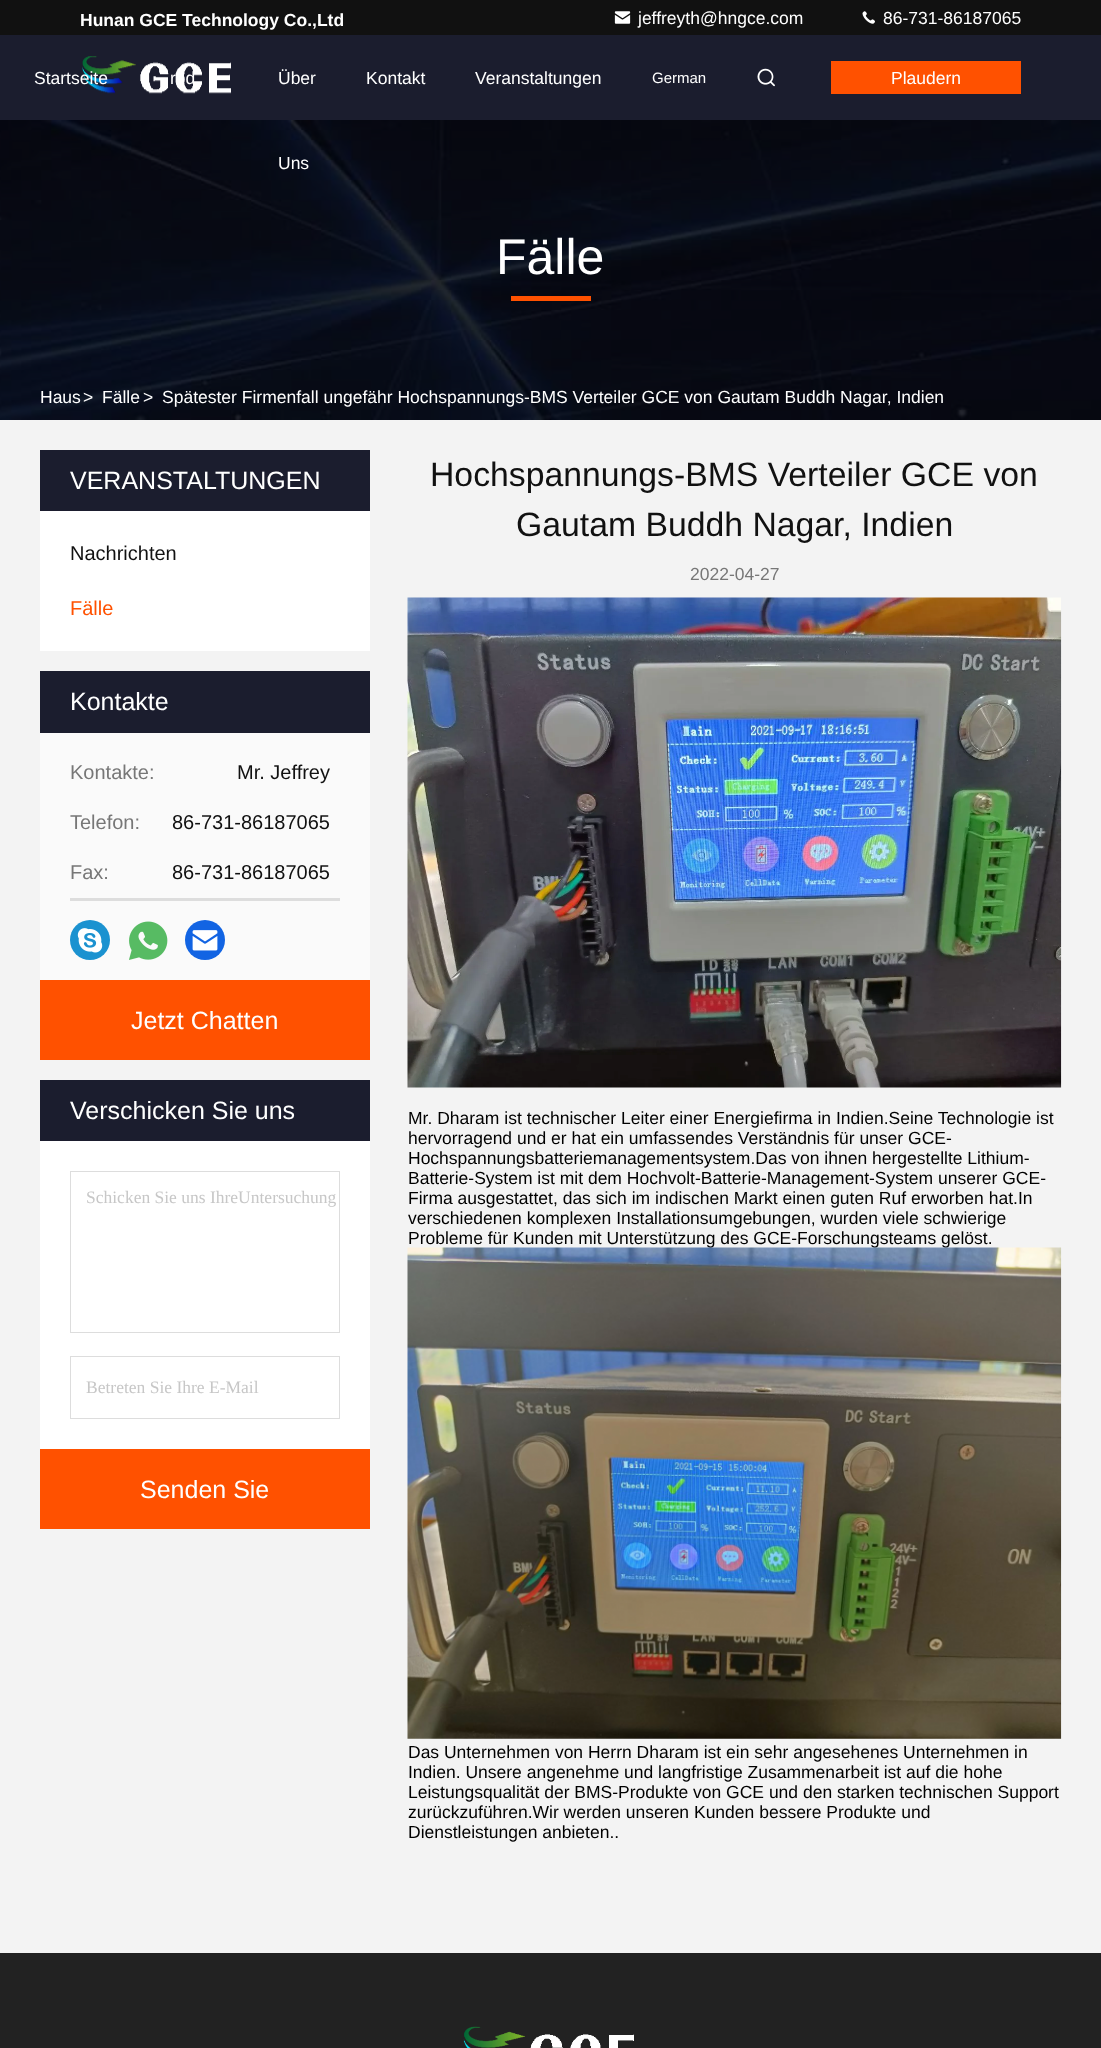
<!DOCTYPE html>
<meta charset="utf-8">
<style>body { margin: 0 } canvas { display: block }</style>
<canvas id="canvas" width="1101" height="2048"></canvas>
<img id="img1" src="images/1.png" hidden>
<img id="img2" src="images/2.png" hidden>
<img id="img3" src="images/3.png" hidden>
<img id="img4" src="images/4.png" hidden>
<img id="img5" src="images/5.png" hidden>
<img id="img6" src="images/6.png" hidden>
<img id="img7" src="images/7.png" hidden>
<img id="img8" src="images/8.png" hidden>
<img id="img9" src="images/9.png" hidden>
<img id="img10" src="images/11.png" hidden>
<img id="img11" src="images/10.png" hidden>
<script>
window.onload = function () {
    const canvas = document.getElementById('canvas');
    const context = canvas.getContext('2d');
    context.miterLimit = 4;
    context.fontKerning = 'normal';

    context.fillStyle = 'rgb(243, 243, 243)';
    context.fillRect(0, 0, 1101, 2048);
    context.fillStyle = 'rgb(17, 17, 17)';
    context.fillRect(0, 0, 1101, 35);
    context.drawImage(document.getElementById('img1'), 614, 11, 17, 13);
    context.drawImage(document.getElementById('img2'), 862, 11, 13, 13);
    context.fillStyle = 'rgb(27, 29, 46)';
    context.fillRect(0, 35, 1101, 85);
    context.drawImage(document.getElementById('img3'), 82, 56, 149, 38);
    context.drawImage(document.getElementById('img4'), 757, 68, 18, 19);
    context.fillStyle = 'rgb(255, 81, 0)';
    context.fillRect(831, 61, 190, 33);
    context.drawImage(document.getElementById('img5'), 0, 120, 1101, 300);
    context.fillRect(511, 296, 80, 5);
    context.fillStyle = 'rgb(27, 29, 46)';
    context.fillRect(40, 450, 330, 61);
    context.fillStyle = 'rgb(255, 255, 255)';
    context.fillRect(40, 511, 330, 140);
    context.fillStyle = 'rgb(27, 29, 46)';
    context.fillRect(40, 671, 330, 62);
    context.fillStyle = 'rgb(250, 250, 250)';
    context.fillRect(40, 733, 330, 247);
    context.fillStyle = 'rgb(221, 221, 221)';
    context.fillRect(70, 898, 270, 3);
    context.fillStyle = 'rgb(27, 146, 208)';
    context.beginPath();
    context.arc(90, 940, 20, 0, 2 * Math.PI);
    context.fill();
    context.drawImage(document.getElementById('img6'), 77, 928, 26, 25);
    context.drawImage(document.getElementById('img7'), 129, 921, 39, 39);
    context.fillStyle = 'rgb(18, 100, 227)';
    context.beginPath();
    context.arc(205, 940, 20, 0, 2 * Math.PI);
    context.fill();
    context.drawImage(document.getElementById('img8'), 192, 930, 26, 21);
    context.fillStyle = 'rgb(255, 81, 0)';
    context.fillRect(40, 980, 330, 80);
    context.fillStyle = 'rgb(27, 29, 46)';
    context.fillRect(40, 1080, 330, 61);
    context.fillStyle = 'rgb(255, 255, 255)';
    context.fillRect(40, 1141, 330, 308);
    context.strokeStyle = 'rgb(221, 221, 221)';
    context.strokeRect(70.5, 1171.5, 269, 161);
    context.strokeRect(70.5, 1356.5, 269, 62);
    context.fillStyle = 'rgb(255, 81, 0)';
    context.fillRect(40, 1449, 330, 80);
    context.drawImage(document.getElementById('img9'), 407, 597, 655, 491);
    context.fillStyle = 'rgb(34, 34, 34)';
    context.fillRect(0, 1953, 1101, 95);
    context.drawImage(document.getElementById('img10'), 463, 2026, 171, 22);
    context.font = 'bold 17.5px Liberation Sans';
    context.fillStyle = 'rgb(255, 255, 255)';
    context.fillText('Hunan GCE Technology Co.,Ltd', 80, 26);
    context.font = '17.5px Liberation Sans';
    context.fillText('jeffreyth@hngce.com', 638, 24);
    context.fillText('86-731-86187065', 883, 24);
    context.fillText('Startseite', 34, 84);
    context.fillText('rod', 170, 84);
    context.fillText('Über', 278, 84);
    context.fillText('Uns', 278, 169);
    context.fillText('Kontakt', 366, 84);
    context.fillText('Veranstaltungen', 475, 84);
    context.font = '15px Liberation Sans';
    context.fillText('German', 652, 83);
    context.font = '17.5px Liberation Sans';
    context.fillText('Plaudern', 891, 84);
    context.font = '50px Liberation Sans';
    context.fillText('Fälle', 496, 274);
    context.font = '17.5px Liberation Sans';
    context.fillText('Haus', 40, 403);
    context.fillText('>', 83, 403);
    context.fillText('Fälle', 102, 403);
    context.fillText('>', 143, 403);
    context.fillText('Spätester Firmenfall ungefähr Hochspannungs-BMS Verteiler GCE von Gautam Buddh Nagar, Indien', 162, 403);
    context.font = '25px Liberation Sans';
    context.fillText('VERANSTALTUNGEN', 70, 489);
    context.font = '20px Liberation Sans';
    context.fillStyle = 'rgb(17, 17, 17)';
    context.fillText('Nachrichten', 70, 560);
    context.fillStyle = 'rgb(255, 81, 0)';
    context.fillText('Fälle', 70, 615);
    context.font = '25px Liberation Sans';
    context.fillStyle = 'rgb(255, 255, 255)';
    context.fillText('Kontakte', 70, 710);
    context.font = '20px Liberation Sans';
    context.fillStyle = 'rgb(119, 119, 119)';
    context.fillText('Kontakte:', 70, 779);
    context.fillStyle = 'rgb(17, 17, 17)';
    context.fillText('Mr. Jeffrey', 237, 779);
    context.fillStyle = 'rgb(119, 119, 119)';
    context.fillText('Telefon:', 70, 829);
    context.fillStyle = 'rgb(17, 17, 17)';
    context.fillText('86-731-86187065', 172, 829);
    context.fillStyle = 'rgb(119, 119, 119)';
    context.fillText('Fax:', 70, 879);
    context.fillStyle = 'rgb(17, 17, 17)';
    context.fillText('86-731-86187065', 172, 879);
    context.font = '25px Liberation Sans';
    context.fillStyle = 'rgb(255, 255, 255)';
    context.fillText('Jetzt Chatten', 131, 1029);
    context.fillText('Verschicken Sie uns', 70, 1119);
    context.font = '17.5px Liberation Serif';
    context.fillStyle = 'rgb(199, 199, 199)';
    context.fillText('Schicken Sie uns IhreUntersuchung', 86, 1203);
    context.fillText('Betreten Sie Ihre E-Mail', 86, 1393);
    context.font = '25px Liberation Sans';
    context.fillStyle = 'rgb(255, 255, 255)';
    context.fillText('Senden Sie', 140, 1498);
    context.font = '33.75px Liberation Sans';
    context.fillStyle = 'rgb(17, 17, 17)';
    context.fillText('Hochspannungs-BMS Verteiler GCE von', 430, 486);
    context.fillText('Gautam Buddh Nagar, Indien', 516, 536);
    context.font = '17.5px Liberation Sans';
    context.fillStyle = 'rgb(119, 119, 119)';
    context.fillText('2022-04-27', 690, 580);
    context.fillStyle = 'rgb(0, 0, 0)';
    context.fillText('Mr. Dharam ist technischer Leiter einer Energiefirma in Indien.Seine Technologie ist', 408, 1124);
    context.fillText('hervorragend und er hat ein umfassendes Verständnis für unser GCE-', 408, 1144);
    context.fillText('Hochspannungsbatteriemanagementsystem.Das von ihnen hergestellte Lithium-', 408, 1164);
    context.fillText('Batterie-System ist mit dem Hochvolt-Batterie-Management-System unserer GCE-', 408, 1184);
    context.fillText('Firma ausgestattet, das sich im indischen Markt einen guten Ruf erworben hat.In', 408, 1204);
    context.fillText('verschiedenen komplexen Installationsumgebungen, wurden viele schwierige', 408, 1224);
    context.fillText('Probleme für Kunden mit Unterstützung des GCE-Forschungsteams gelöst.', 408, 1244);
    context.drawImage(document.getElementById('img11'), 407, 1247, 655, 492);
    context.fillText('Das Unternehmen von Herrn Dharam ist ein sehr angesehenes Unternehmen in', 408, 1758);
    context.fillText('Indien. Unsere angenehme und langfristige Zusammenarbeit ist auf die hohe', 408, 1778);
    context.fillText('Leistungsqualität der BMS-Produkte von GCE und den starken technischen Support', 408, 1798);
    context.fillText('zurückzuführen.Wir werden unseren Kunden bessere Produkte und', 408, 1818);
    context.fillText('Dienstleistungen anbieten..', 408, 1838);
};
</script>
